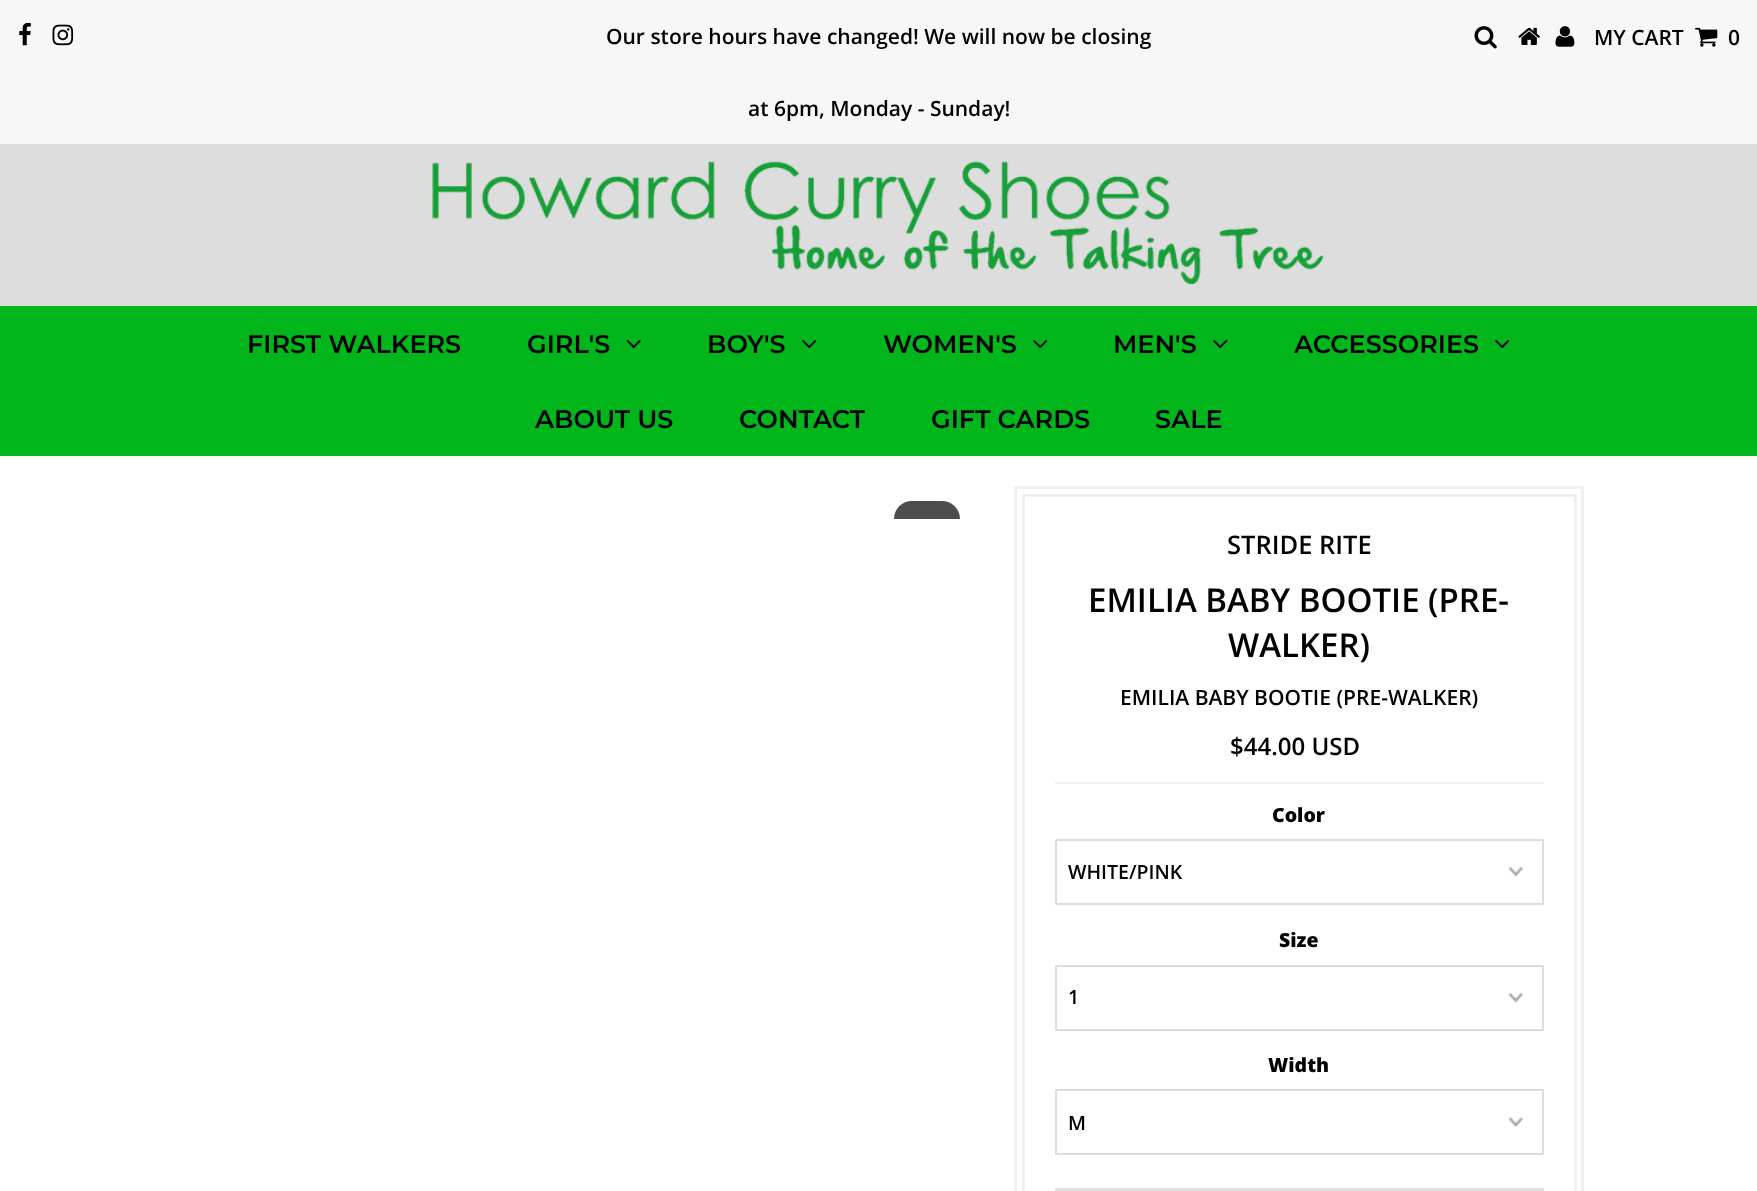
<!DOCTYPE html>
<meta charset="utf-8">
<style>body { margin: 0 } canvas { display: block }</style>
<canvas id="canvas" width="1757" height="1191"></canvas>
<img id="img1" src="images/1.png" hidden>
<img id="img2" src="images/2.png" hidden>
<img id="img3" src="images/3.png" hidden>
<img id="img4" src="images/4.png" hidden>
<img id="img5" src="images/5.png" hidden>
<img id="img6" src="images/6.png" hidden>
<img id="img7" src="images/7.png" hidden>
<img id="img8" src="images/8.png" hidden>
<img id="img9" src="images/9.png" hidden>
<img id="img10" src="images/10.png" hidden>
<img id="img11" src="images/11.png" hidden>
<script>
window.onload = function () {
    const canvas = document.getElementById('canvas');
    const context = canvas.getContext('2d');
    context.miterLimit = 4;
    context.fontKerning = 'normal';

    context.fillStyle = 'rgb(255, 255, 255)';
    context.fillRect(0, 0, 1757, 1191);
    context.fillStyle = 'rgb(247, 247, 247)';
    context.fillRect(0, 0, 1757, 144);
    context.drawImage(document.getElementById('img1'), 19, 22, 12, 24);
    context.drawImage(document.getElementById('img2'), 52, 24, 22, 22);
    context.drawImage(document.getElementById('img3'), 1474, 26, 23, 23);
    context.drawImage(document.getElementById('img4'), 1518, 27, 22, 18);
    context.drawImage(document.getElementById('img5'), 1555, 26, 20, 21);
    context.drawImage(document.getElementById('img6'), 1695, 27, 23, 20);
    context.fillStyle = 'rgb(221, 221, 221)';
    context.fillRect(0, 144, 1757, 162);
    context.drawImage(document.getElementById('img7'), 432, 161, 892, 124);
    context.fillStyle = 'rgb(1, 182, 27)';
    context.fillRect(0, 306, 1757, 150);
    context.drawImage(document.getElementById('img8'), 626, 340, 15, 9);
    context.drawImage(document.getElementById('img9'), 802, 340, 15, 9);
    context.drawImage(document.getElementById('img9'), 1033, 340, 15, 9);
    context.drawImage(document.getElementById('img9'), 1213, 340, 15, 9);
    context.drawImage(document.getElementById('img9'), 1495, 340, 15, 9);
    context.fillStyle = 'rgb(77, 77, 77)';
    context.beginPath();
    context.roundRect(894, 501, 66, 18, [33, 33, 0, 0]);
    context.fill();
    context.strokeStyle = 'rgb(240, 240, 240)';
    context.lineWidth = 3;
    context.strokeRect(1015.5, 487.5, 567, 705);
    context.strokeRect(1023.5, 495.5, 552, 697);
    context.fillStyle = 'rgb(240, 240, 240)';
    context.fillRect(1055, 782, 489, 2);
    context.drawImage(document.getElementById('img10'), 1508, 866, 15, 11);
    context.beginPath();
    context.roundRect(1056, 840, 487, 64, 0.5);
    context.strokeStyle = 'rgb(221, 221, 221)';
    context.lineWidth = 2;
    context.stroke();
    context.drawImage(document.getElementById('img10'), 1508, 992, 15, 11);
    context.beginPath();
    context.roundRect(1056, 966, 487, 64, 0.5);
    context.stroke();
    context.drawImage(document.getElementById('img11'), 1508, 1117, 15, 10);
    context.beginPath();
    context.roundRect(1056, 1090, 487, 64, 0.5);
    context.stroke();
    context.fillStyle = 'rgb(223, 223, 223)';
    context.fillRect(1055, 1188, 489, 3);
    context.font = '600 21px Open Sans';
    context.fillStyle = 'rgb(0, 0, 0)';
    context.fillText('Our store hours have changed! We will now be closing', 606, 44);
    context.fillText('at 6pm, Monday - Sunday!', 748, 116);
    context.fillText('MY CART', 1594, 45);
    context.fillText('0', 1728, 45);
    context.font = '600 25.5px Montserrat';
    context.fillText('FIRST WALKERS', 247, 353);
    context.fillText('GIRL\'S', 527, 353);
    context.fillText('BOY\'S', 707, 353);
    context.fillText('WOMEN\'S', 883, 353);
    context.fillText('MEN\'S', 1113, 353);
    context.fillText('ACCESSORIES', 1294, 353);
    context.fillText('ABOUT US', 535, 428);
    context.fillText('CONTACT', 739, 428);
    context.fillText('GIFT CARDS', 931, 428);
    context.fillText('SALE', 1155, 428);
    context.font = '600 25.5px Open Sans';
    context.fillText('STRIDE RITE', 1227, 554);
    context.font = '600 33px Open Sans';
    context.fillText('EMILIA BABY BOOTIE (PRE-', 1088, 612);
    context.fillText('WALKER)', 1228, 657);
    context.font = '600 21px Open Sans';
    context.fillText('EMILIA BABY BOOTIE (PRE-WALKER)', 1120, 705);
    context.font = '600 24px Open Sans';
    context.fillText('$44.00 USD', 1230, 755);
    context.font = '800 19.5px Open Sans';
    context.fillText('Color', 1272, 822);
    context.font = '600 19.5px Open Sans';
    context.fillText('WHITE/PINK', 1068, 879);
    context.font = '800 19.5px Open Sans';
    context.fillText('Size', 1279, 947);
    context.font = '600 19.5px Open Sans';
    context.fillText('1', 1068, 1004);
    context.font = '800 19.5px Open Sans';
    context.fillText('Width', 1268, 1072);
    context.font = '600 19.5px Open Sans';
    context.fillText('M', 1068, 1130);
};
</script>
